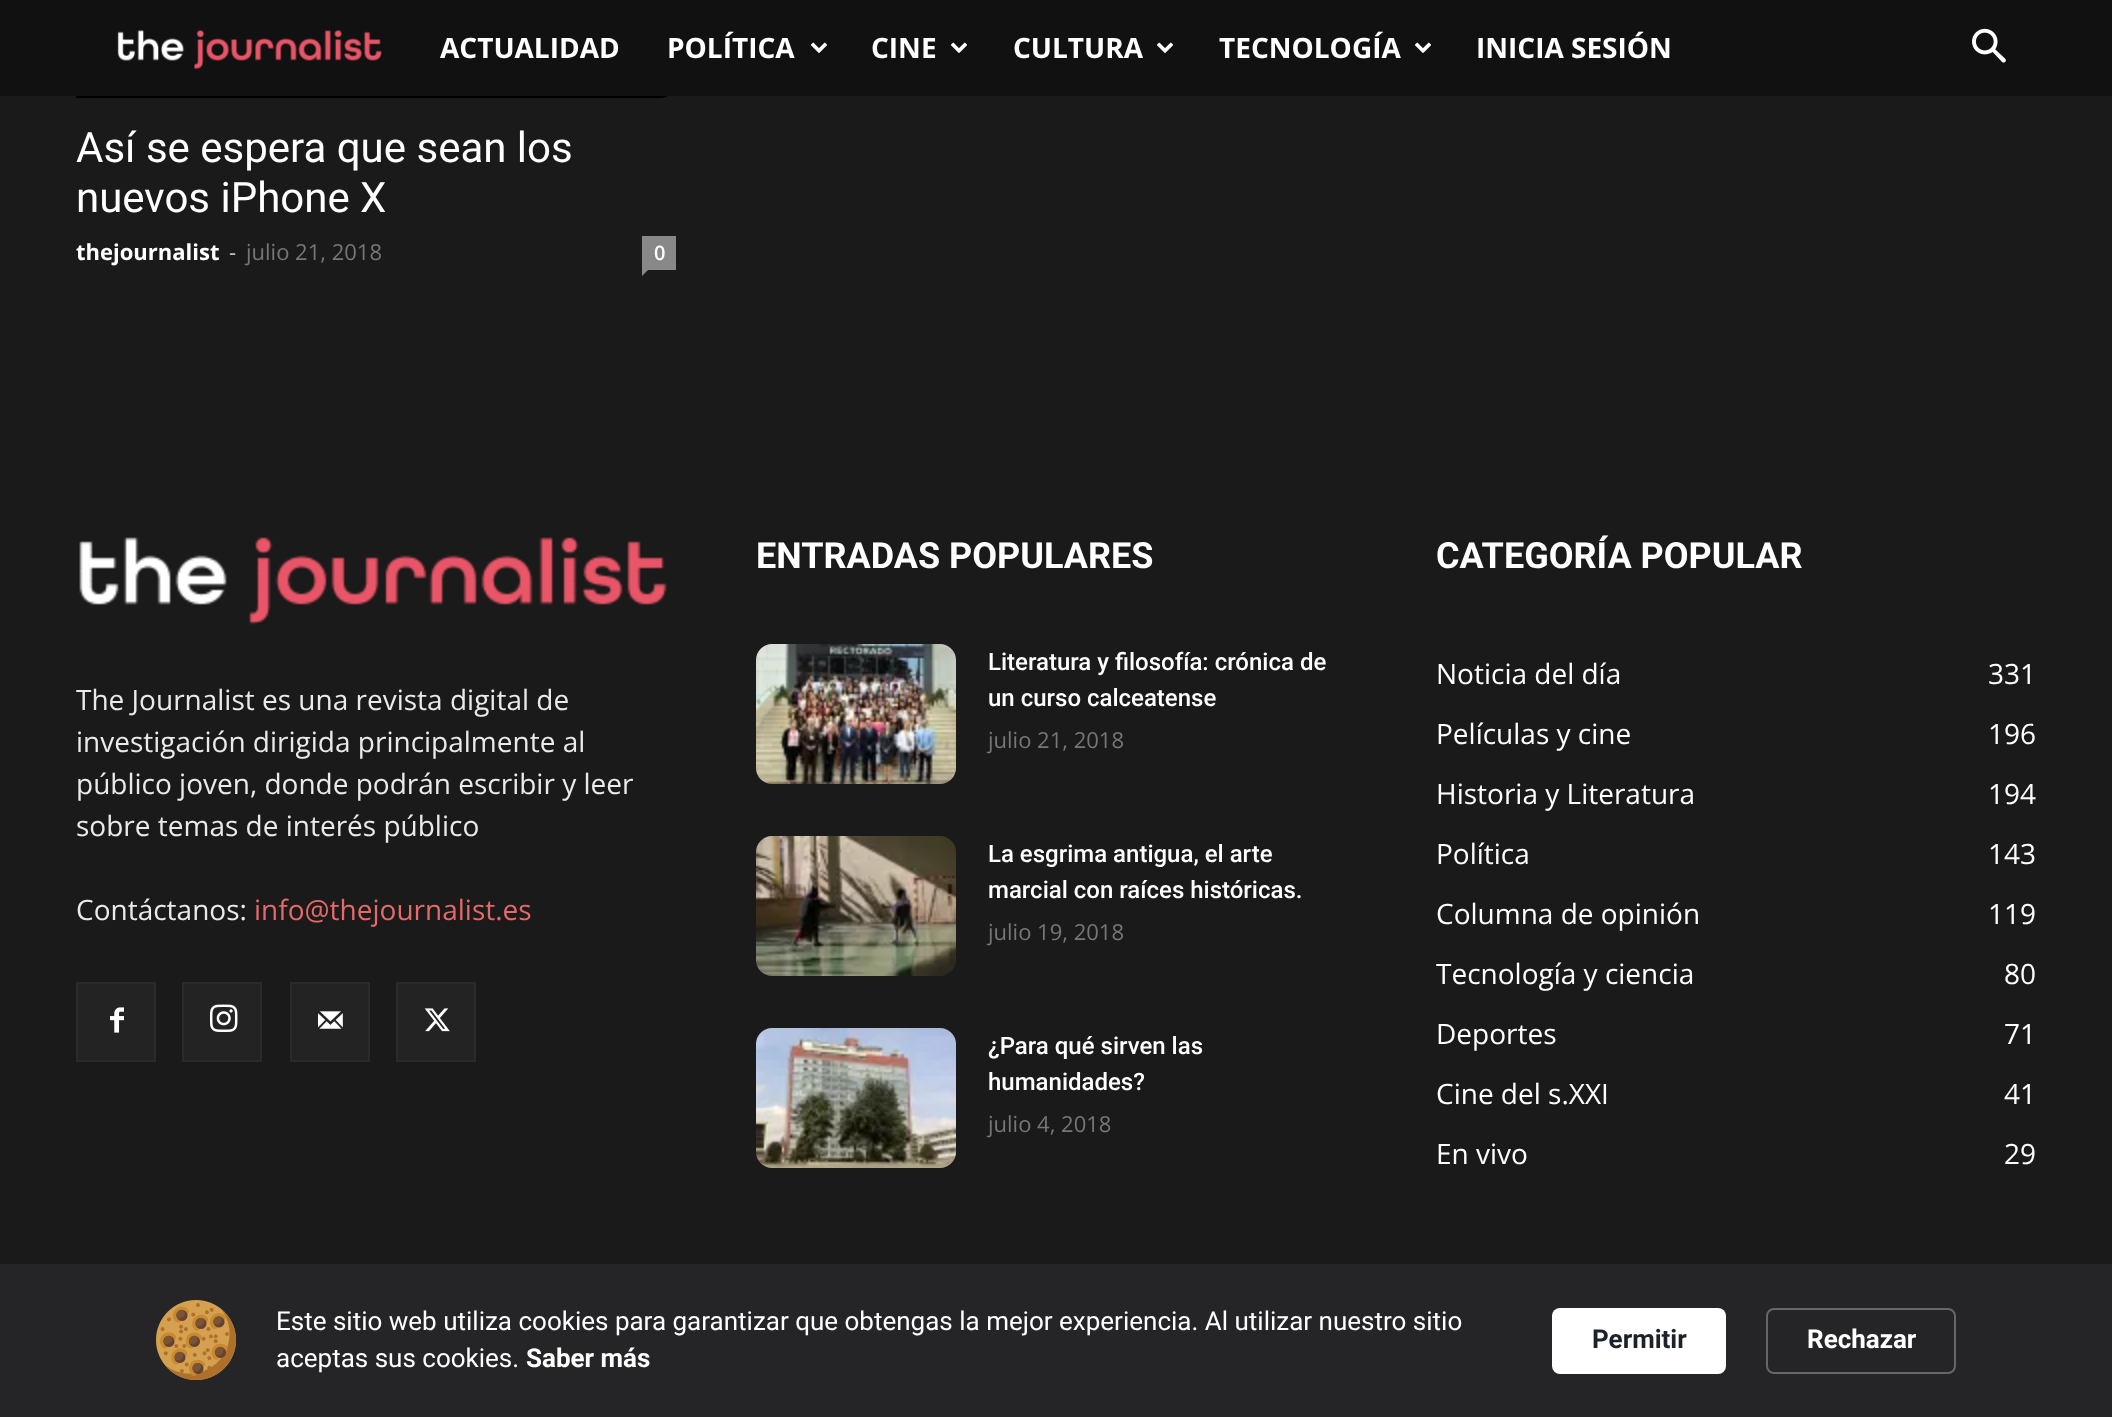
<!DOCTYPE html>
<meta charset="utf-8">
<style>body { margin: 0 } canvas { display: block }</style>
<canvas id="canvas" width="2112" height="1417"></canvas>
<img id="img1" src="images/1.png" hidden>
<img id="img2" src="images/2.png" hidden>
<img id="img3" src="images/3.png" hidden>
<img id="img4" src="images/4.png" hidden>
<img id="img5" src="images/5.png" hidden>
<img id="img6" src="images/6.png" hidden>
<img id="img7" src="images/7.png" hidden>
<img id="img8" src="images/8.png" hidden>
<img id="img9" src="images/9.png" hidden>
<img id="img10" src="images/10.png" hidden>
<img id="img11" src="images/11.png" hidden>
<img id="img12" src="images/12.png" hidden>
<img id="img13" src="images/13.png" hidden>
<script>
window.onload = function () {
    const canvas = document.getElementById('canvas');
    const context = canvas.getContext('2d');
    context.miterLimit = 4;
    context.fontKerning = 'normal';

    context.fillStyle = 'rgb(26, 26, 26)';
    context.fillRect(0, 0, 2112, 1417);
    context.fillStyle = 'rgb(17, 17, 17)';
    context.fillRect(0, 0, 2112, 96);
    context.drawImage(document.getElementById('img1'), 117, 30, 265, 40);
    context.drawImage(document.getElementById('img2'), 811, 42, 16, 11);
    context.drawImage(document.getElementById('img2'), 951, 42, 16, 11);
    context.drawImage(document.getElementById('img2'), 1157, 42, 16, 11);
    context.drawImage(document.getElementById('img2'), 1415, 42, 16, 11);
    context.drawImage(document.getElementById('img3'), 1972, 28, 34, 35);
    context.fillStyle = 'rgb(0, 0, 0)';
    context.fillRect(76, 96, 162, 2);
    context.drawImage(document.getElementById('img4'), 238, 96, 430, 2);
    context.fillStyle = 'rgb(136, 136, 136)';
    context.fillRect(642, 236, 34, 34);
    context.beginPath();
    context.moveTo(642, 270);
    context.lineTo(648, 270);
    context.lineTo(642, 276);
    context.closePath();
    context.fill();
    context.drawImage(document.getElementById('img5'), 756, 644, 200, 140);
    context.drawImage(document.getElementById('img6'), 756, 836, 200, 140);
    context.drawImage(document.getElementById('img7'), 756, 1028, 200, 140);
    context.drawImage(document.getElementById('img8'), 79, 537, 588, 88);
    context.fillStyle = 'rgb(35, 35, 35)';
    context.fillRect(78, 984, 76, 76);
    context.drawImage(document.getElementById('img9'), 110, 1007, 14, 26);
    context.strokeStyle = 'rgb(42, 42, 42)';
    context.lineWidth = 2;
    context.strokeRect(77, 983, 78, 78);
    context.fillRect(184, 984, 76, 76);
    context.drawImage(document.getElementById('img10'), 210, 1004, 28, 28);
    context.strokeRect(183, 983, 78, 78);
    context.fillRect(292, 984, 76, 76);
    context.drawImage(document.getElementById('img11'), 318, 1011, 25, 18);
    context.strokeRect(291, 983, 78, 78);
    context.fillRect(398, 984, 76, 76);
    context.drawImage(document.getElementById('img12'), 424, 1008, 26, 24);
    context.strokeRect(397, 983, 78, 78);
    context.fillStyle = 'rgb(37, 37, 40)';
    context.fillRect(0, 1264, 2112, 153);
    context.drawImage(document.getElementById('img13'), 156, 1300, 80, 80);
    context.fillStyle = 'rgb(255, 255, 255)';
    context.beginPath();
    context.roundRect(1552, 1308, 174, 66, 8);
    context.fill();
    context.beginPath();
    context.roundRect(1767, 1309, 188, 64, 7);
    context.strokeStyle = 'rgb(102, 102, 105)';
    context.stroke();
    context.font = 'bold 28px Open Sans';
    context.fillText('ACTUALIDAD', 440, 58);
    context.fillText('POLÍTICA', 667, 58);
    context.fillText('CINE', 871, 58);
    context.fillText('CULTURA', 1013, 58);
    context.fillText('TECNOLOGÍA', 1219, 58);
    context.fillText('INICIA SESIÓN', 1476, 58);
    context.font = '42px Roboto';
    context.fillText('Así se espera que sean los', 76, 162);
    context.fillText('nuevos iPhone X', 76, 212);
    context.font = 'bold 22px Open Sans';
    context.fillText('thejournalist', 76, 260);
    context.font = '22px Open Sans';
    context.fillStyle = 'rgb(204, 204, 204)';
    context.fillText('-', 229, 260);
    context.fillStyle = 'rgb(118, 118, 118)';
    context.fillText('julio 21, 2018', 246, 260);
    context.font = '600 20px Open Sans';
    context.fillStyle = 'rgb(255, 255, 255)';
    context.fillText('0', 654, 260);
    context.font = 'bold 36px Roboto';
    context.fillText('ENTRADAS POPULARES', 756, 568);
    context.font = '500 24px Roboto';
    context.fillText('Literatura y filosofía: crónica de', 988, 670);
    context.fillText('un curso calceatense', 988, 706);
    context.font = '22px Open Sans';
    context.fillStyle = 'rgb(118, 118, 118)';
    context.fillText('julio 21, 2018', 988, 748);
    context.font = '500 24px Roboto';
    context.fillStyle = 'rgb(255, 255, 255)';
    context.fillText('La esgrima antigua, el arte', 988, 862);
    context.fillText('marcial con raíces históricas.', 988, 898);
    context.font = '22px Open Sans';
    context.fillStyle = 'rgb(118, 118, 118)';
    context.fillText('julio 19, 2018', 988, 940);
    context.font = '500 24px Roboto';
    context.fillStyle = 'rgb(255, 255, 255)';
    context.fillText('¿Para qué sirven las', 988, 1054);
    context.fillText('humanidades?', 988, 1090);
    context.font = '22px Open Sans';
    context.fillStyle = 'rgb(118, 118, 118)';
    context.fillText('julio 4, 2018', 988, 1132);
    context.font = 'bold 36px Roboto';
    context.fillStyle = 'rgb(255, 255, 255)';
    context.fillText('CATEGORÍA POPULAR', 1436, 568);
    context.font = '28px Open Sans';
    context.fillText('Noticia del día', 1436, 684);
    context.fillText('331', 1988, 684);
    context.fillText('Películas y cine', 1436, 744);
    context.fillText('196', 1988, 744);
    context.fillText('Historia y Literatura', 1436, 804);
    context.fillText('194', 1988, 804);
    context.fillText('Política', 1436, 864);
    context.fillText('143', 1988, 864);
    context.fillText('Columna de opinión', 1436, 924);
    context.fillText('119', 1988, 924);
    context.fillText('Tecnología y ciencia', 1436, 984);
    context.fillText('80', 2004, 984);
    context.fillText('Deportes', 1436, 1044);
    context.fillText('71', 2004, 1044);
    context.fillText('Cine del s.XXI', 1436, 1104);
    context.fillText('41', 2004, 1104);
    context.fillText('En vivo', 1436, 1164);
    context.fillText('29', 2004, 1164);
    context.fillStyle = 'rgb(234, 234, 234)';
    context.fillText('The Journalist es una revista digital de', 76, 710);
    context.fillText('investigación dirigida principalmente al', 76, 752);
    context.fillText('público joven, donde podrán escribir y leer', 76, 794);
    context.fillText('sobre temas de interés público', 76, 836);
    context.fillText('Contáctanos:', 76, 920);
    context.fillStyle = 'rgb(229, 105, 105)';
    context.fillText('info@thejournalist.es', 254, 920);
    context.font = '26px Roboto';
    context.fillStyle = 'rgb(255, 255, 255)';
    context.fillText('Este sitio web utiliza cookies para garantizar que obtengas la mejor experiencia. Al utilizar nuestro sitio', 276, 1330);
    context.fillText('aceptas sus cookies.', 276, 1367);
    context.font = 'bold 26px Roboto';
    context.fillText('Saber más', 526, 1367);
    context.fillStyle = 'rgb(29, 33, 41)';
    context.fillText('Permitir', 1592, 1348);
    context.fillStyle = 'rgb(255, 255, 255)';
    context.fillText('Rechazar', 1807, 1348);
};
</script>
